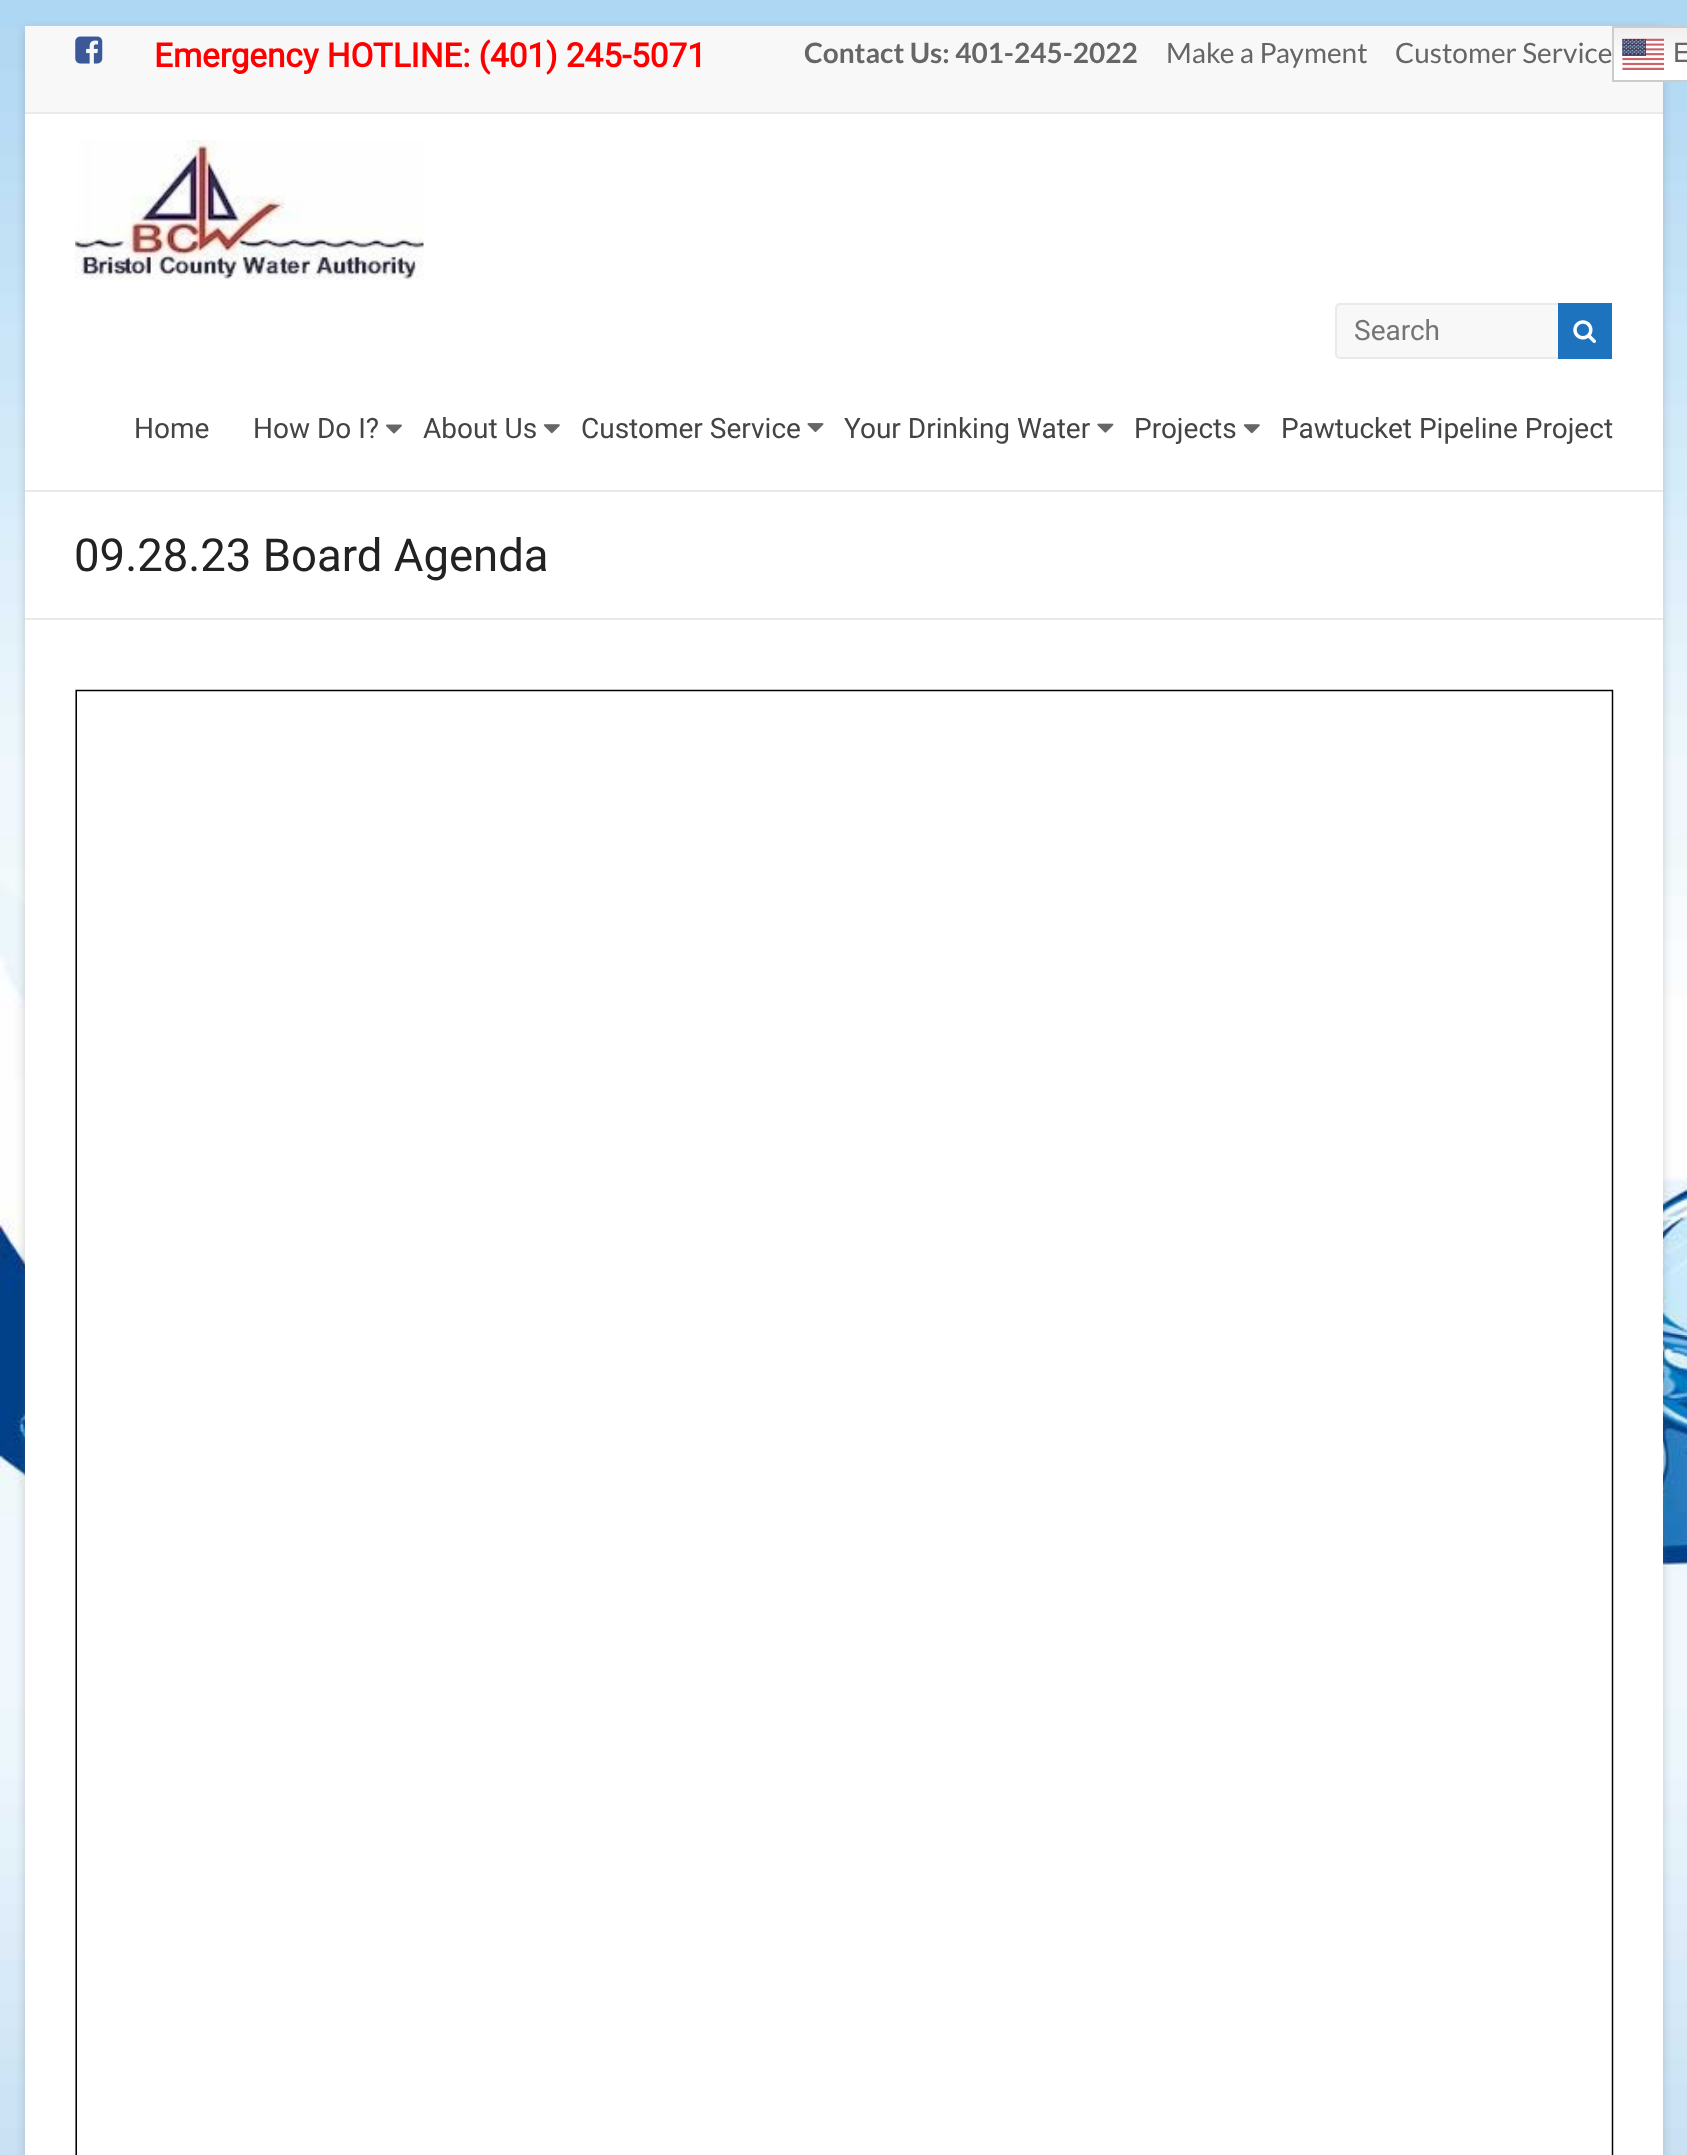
<!DOCTYPE html>
<meta charset="utf-8">
<style>body { margin: 0 } canvas { display: block }</style>
<canvas id="canvas" width="1687" height="2155"></canvas>
<img id="img1" src="images/1.png" hidden>
<img id="img2" src="images/2.png" hidden>
<img id="img3" src="images/3.png" hidden>
<img id="img4" src="images/4.png" hidden>
<img id="img5" src="images/5.png" hidden>
<img id="img6" src="images/6.png" hidden>
<img id="img7" src="images/7.png" hidden>
<img id="img8" src="images/8.png" hidden>
<img id="img9" src="images/9.png" hidden>
<img id="img10" src="images/10.png" hidden>
<img id="img11" src="images/11.png" hidden>
<script>
window.onload = function () {
    const canvas = document.getElementById('canvas');
    const context = canvas.getContext('2d');
    context.miterLimit = 4;
    context.fontKerning = 'normal';
    let gradient;

    context.fillStyle = 'rgb(255, 255, 255)';
    context.fillRect(0, 0, 1687, 2155);
    context.drawImage(document.getElementById('img1'), 0, 0, 1687, 2155);
    context.fillStyle = 'rgba(100, 100, 100, 0.3)';
    context.filter = 'blur(5px)';
    context.beginPath();
    context.rect(25, 30, 1638, 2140);
    context.fill();
    context.filter = 'none';
    context.fillStyle = 'rgb(255, 255, 255)';
    context.fillRect(25, 114, 1638, 2041);
    context.fillStyle = 'rgb(248, 248, 248)';
    context.fillRect(25, 26, 1638, 86);
    context.fillStyle = 'rgb(234, 234, 234)';
    context.fillRect(25, 112, 1638, 2);
    context.drawImage(document.getElementById('img2'), 75, 36, 28, 28);
    gradient = context.createLinearGradient(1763, 26, 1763, 82);
    gradient.addColorStop(0, 'rgb(239, 239, 239)');
    gradient.addColorStop(0.7, 'rgb(255, 255, 255)');
    context.fillStyle = gradient;
    context.fillRect(1614, 28, 73, 52);
    context.strokeStyle = 'rgb(204, 204, 204)';
    context.lineWidth = 2;
    context.strokeRect(1613, 27, 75, 54);
    context.drawImage(document.getElementById('img3'), 1622, 38, 42, 32);
    context.fillStyle = 'rgb(234, 234, 234)';
    context.fillRect(25, 490, 1638, 2);
    context.drawImage(document.getElementById('img4'), 75, 140, 349, 141);
    context.fillStyle = 'rgb(248, 248, 248)';
    context.beginPath();
    context.roundRect(1336, 304, 226, 54, 4);
    context.fill();
    context.strokeStyle = 'rgb(234, 234, 234)';
    context.stroke();
    context.fillStyle = 'rgb(30, 115, 190)';
    context.fillRect(1558, 303, 54, 56);
    context.drawImage(document.getElementById('img5'), 1573, 320, 23, 23);
    context.drawImage(document.getElementById('img6'), 386, 424, 16, 10);
    context.drawImage(document.getElementById('img7'), 543, 424, 17, 10);
    context.drawImage(document.getElementById('img8'), 807, 423, 17, 9);
    context.drawImage(document.getElementById('img9'), 1097, 423, 17, 10);
    context.drawImage(document.getElementById('img10'), 1243, 424, 17, 10);
    context.fillStyle = 'rgb(234, 234, 234)';
    context.fillRect(25, 618, 1638, 2);
    context.drawImage(document.getElementById('img11'), 75, 689, 1539, 1466);
    context.font = 'bold 33.25px Roboto';
    context.fillStyle = 'rgb(255, 0, 0)';
    context.fillText('Emergency HOTLINE: (401) 245-5071', 154, 67);
    context.font = 'bold 28px Lato';
    context.fillStyle = 'rgb(102, 102, 102)';
    context.fillText('Contact Us: 401-245-2022', 804, 63);
    context.font = '28px Lato';
    context.fillText('Make a Payment', 1166, 63);
    context.fillText('Customer Service', 1395, 63);
    context.font = '28px Liberation Sans';
    context.fillText('E', 1673, 62);
    context.font = '28px Roboto';
    context.fillStyle = 'rgb(117, 117, 117)';
    context.fillText('Search', 1354, 340);
    context.fillStyle = 'rgb(68, 68, 68)';
    context.fillText('Home', 134, 438);
    context.fillText('How Do I?', 253, 438);
    context.fillText('About Us', 423, 438);
    context.fillText('Customer Service', 581, 438);
    context.fillText('Your Drinking Water', 844, 438);
    context.fillText('Projects', 1134, 438);
    context.fillText('Pawtucket Pipeline Project', 1281, 438);
    context.font = '45.5px Roboto';
    context.fillStyle = 'rgb(34, 34, 34)';
    context.fillText('09.28.23 Board Agenda', 74, 571);
};
</script>
